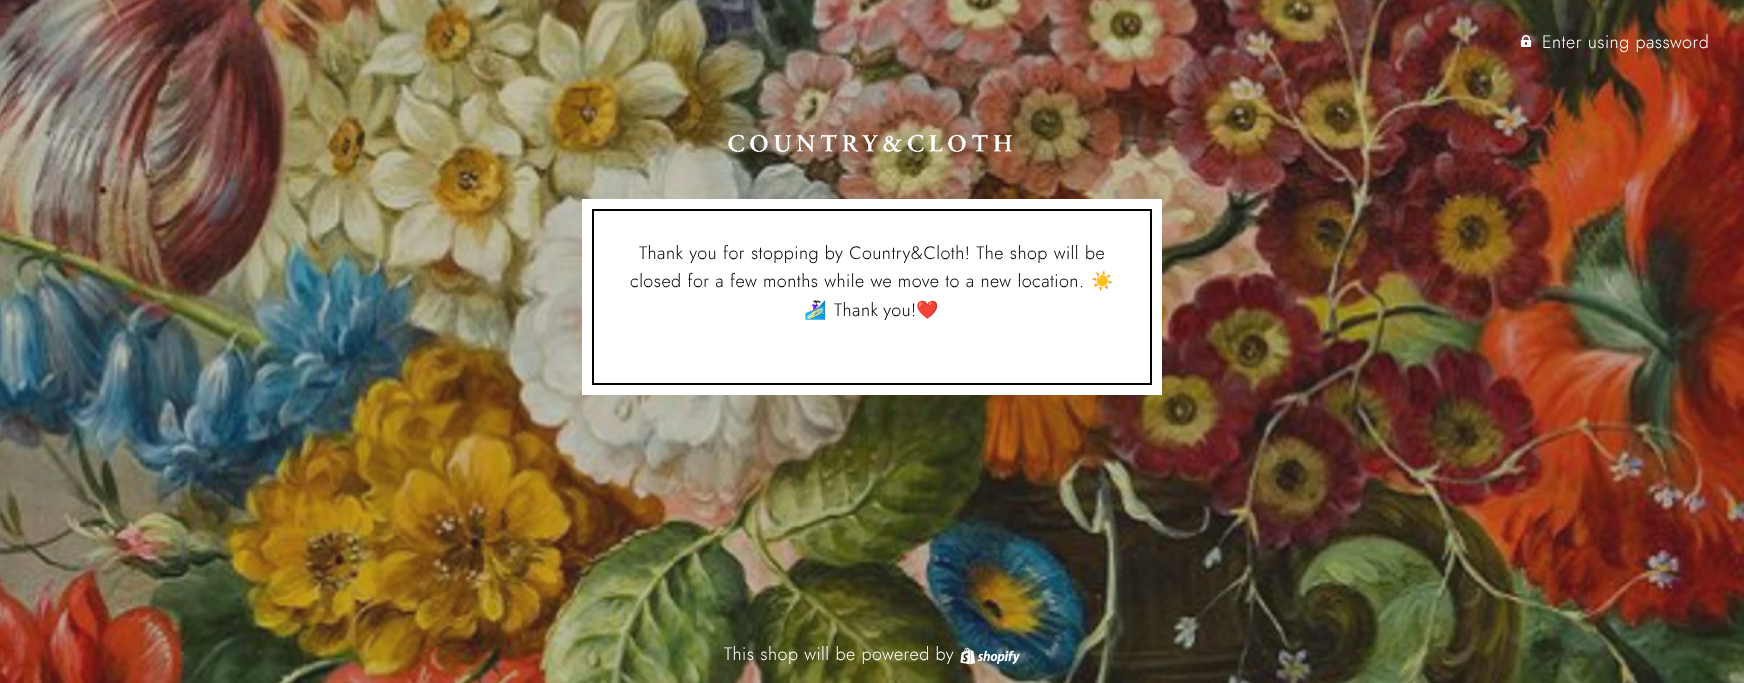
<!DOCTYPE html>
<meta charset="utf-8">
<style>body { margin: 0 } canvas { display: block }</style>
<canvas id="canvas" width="1744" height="683"></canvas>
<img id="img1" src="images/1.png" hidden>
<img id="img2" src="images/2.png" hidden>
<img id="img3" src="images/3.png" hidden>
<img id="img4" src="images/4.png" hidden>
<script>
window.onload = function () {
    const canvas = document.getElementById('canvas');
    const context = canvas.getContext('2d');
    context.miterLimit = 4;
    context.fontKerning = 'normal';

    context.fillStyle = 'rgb(255, 255, 255)';
    context.fillRect(0, 0, 1744, 683);
    context.drawImage(document.getElementById('img1'), 0, 0, 1744, 683);
    context.drawImage(document.getElementById('img2'), 1520, 35, 12, 12);
    context.drawImage(document.getElementById('img3'), 728, 134, 284, 18);
    context.fillRect(582, 199, 580, 196);
    context.strokeStyle = 'rgb(0, 0, 0)';
    context.lineWidth = 2;
    context.strokeRect(593, 210, 558, 174);
    context.drawImage(document.getElementById('img4'), 960, 647, 60, 18);
    context.letterSpacing = '0.45px';
    context.font = '300 18px Jost';
    context.fillText('Enter using password', 1542, 48);
    context.fillStyle = 'rgb(0, 0, 0)';
    context.fillText('Thank you for stopping by Country&Cloth! The shop will be', 639, 259);
    context.fillText('closed for a few months while we move to a new location.', 630, 287);
    context.font = '18px Noto Color Emoji';
    context.fillText('☀️', 1091, 287);
    context.fillText('🏄🏻‍♀️', 804, 316);
    context.wordSpacing = '-1px';
    context.font = '300 18px Jost';
    context.fillText('Thank you!', 834, 316);
    context.wordSpacing = '0px';
    context.font = '18px Noto Color Emoji';
    context.fillText('❤️', 916, 316);
    context.font = '300 18px Jost';
    context.fillStyle = 'rgb(255, 255, 255)';
    context.fillText('This shop will be powered by', 724, 660);
};
</script>
